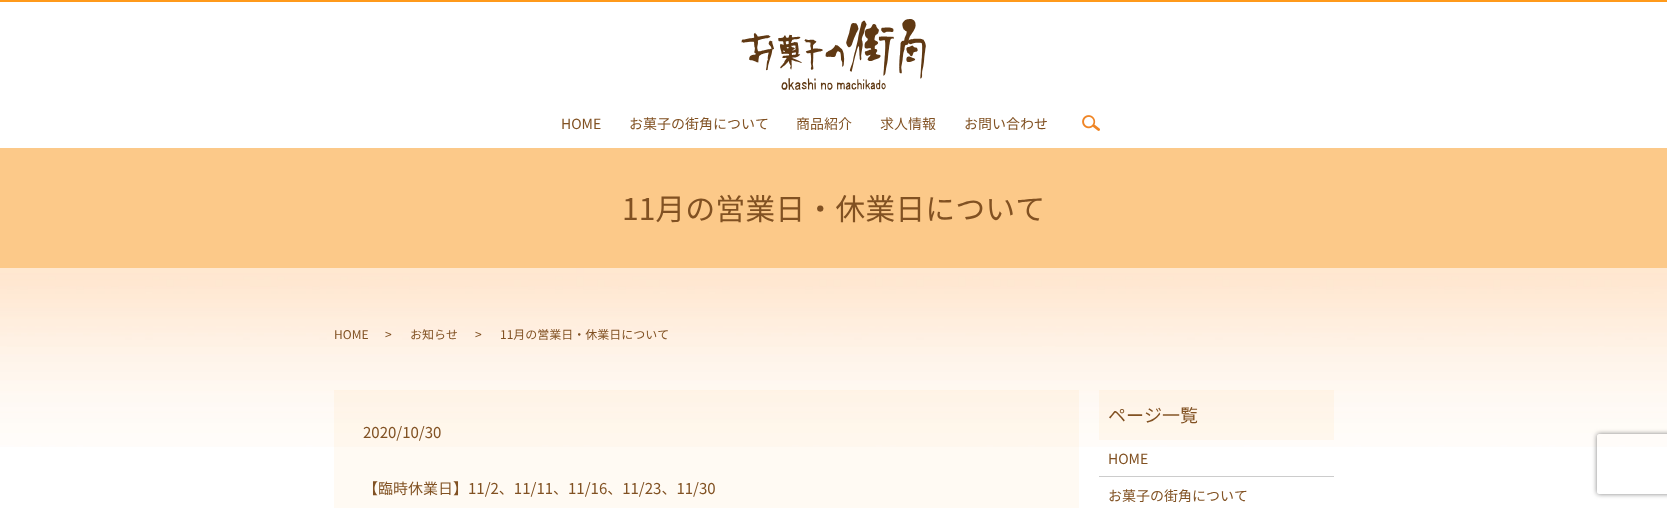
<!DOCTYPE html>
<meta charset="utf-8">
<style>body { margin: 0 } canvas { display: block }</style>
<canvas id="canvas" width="1667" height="508"></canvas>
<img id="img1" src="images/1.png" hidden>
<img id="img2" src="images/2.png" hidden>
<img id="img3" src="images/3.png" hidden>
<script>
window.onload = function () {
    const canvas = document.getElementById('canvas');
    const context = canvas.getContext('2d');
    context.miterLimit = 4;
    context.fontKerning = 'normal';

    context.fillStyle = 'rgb(255, 255, 255)';
    context.fillRect(0, 0, 1667, 508);
    context.fillStyle = 'rgb(255, 154, 27)';
    context.fillRect(0, 0, 1667, 2);
    context.drawImage(document.getElementById('img1'), 741, 19, 185, 71);
    context.drawImage(document.getElementById('img2'), 1082, 115, 18, 16);
    context.drawImage(document.getElementById('img3'), 0, 268, 1667, 179);
    context.fillStyle = 'rgb(252, 201, 137)';
    context.fillRect(0, 148, 1667, 120);
    context.fillStyle = 'rgba(255, 154, 27, 0.05)';
    context.fillRect(334, 390, 745, 118);
    context.fillRect(1099, 390, 235, 50);
    context.fillStyle = 'rgb(204, 204, 204)';
    context.fillRect(1099, 476, 235, 1);
    context.save();
    context.beginPath();
    context.moveTo(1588, 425);
    context.lineTo(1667, 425);
    context.lineTo(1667, 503);
    context.lineTo(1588, 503);
    context.closePath();
    context.moveTo(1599, 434);
    context.lineTo(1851, 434);
    context.bezierCurveTo(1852, 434, 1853, 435, 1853, 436);
    context.lineTo(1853, 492);
    context.bezierCurveTo(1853, 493, 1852, 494, 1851, 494);
    context.lineTo(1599, 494);
    context.bezierCurveTo(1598, 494, 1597, 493, 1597, 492);
    context.lineTo(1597, 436);
    context.bezierCurveTo(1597, 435, 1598, 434, 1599, 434);
    context.closePath();
    context.clip('evenodd');
    context.fillStyle = 'rgb(128, 128, 128)';
    context.filter = 'blur(2.5px)';
    context.beginPath();
    context.roundRect(1597, 434, 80, 60, 2);
    context.fill();
    context.filter = 'none';
    context.restore();
    context.font = '14px Noto Sans JP';
    context.fillStyle = 'rgb(129, 81, 34)';
    context.fillText('HOME', 561, 129);
    context.fillText('お菓子の街角について', 629, 129);
    context.fillText('商品紹介', 796, 129);
    context.fillText('求人情報', 880, 129);
    context.fillText('お問い合わせ', 964, 129);
    context.font = '30px Noto Sans JP';
    context.fillText('11月の営業日・休業日について', 622, 220);
    context.font = '12px Noto Sans JP';
    context.fillText('HOME', 334, 339);
    context.fillText('>', 385, 339);
    context.fillText('お知らせ', 410, 339);
    context.fillText('>', 475, 339);
    context.fillText('11月の営業日・休業日について', 500, 339);
    context.font = '15px Noto Sans JP';
    context.fillText('2020/10/30', 363, 438);
    context.fillText('【臨時休業日】11/2、11/11、11/16、11/23、11/30', 363, 494);
    context.font = '18px Noto Sans JP';
    context.fillText('ページ一覧', 1108, 422);
    context.font = '14px Noto Sans JP';
    context.fillText('HOME', 1108, 464);
    context.fillText('お菓子の街角について', 1108, 501);
};
</script>
